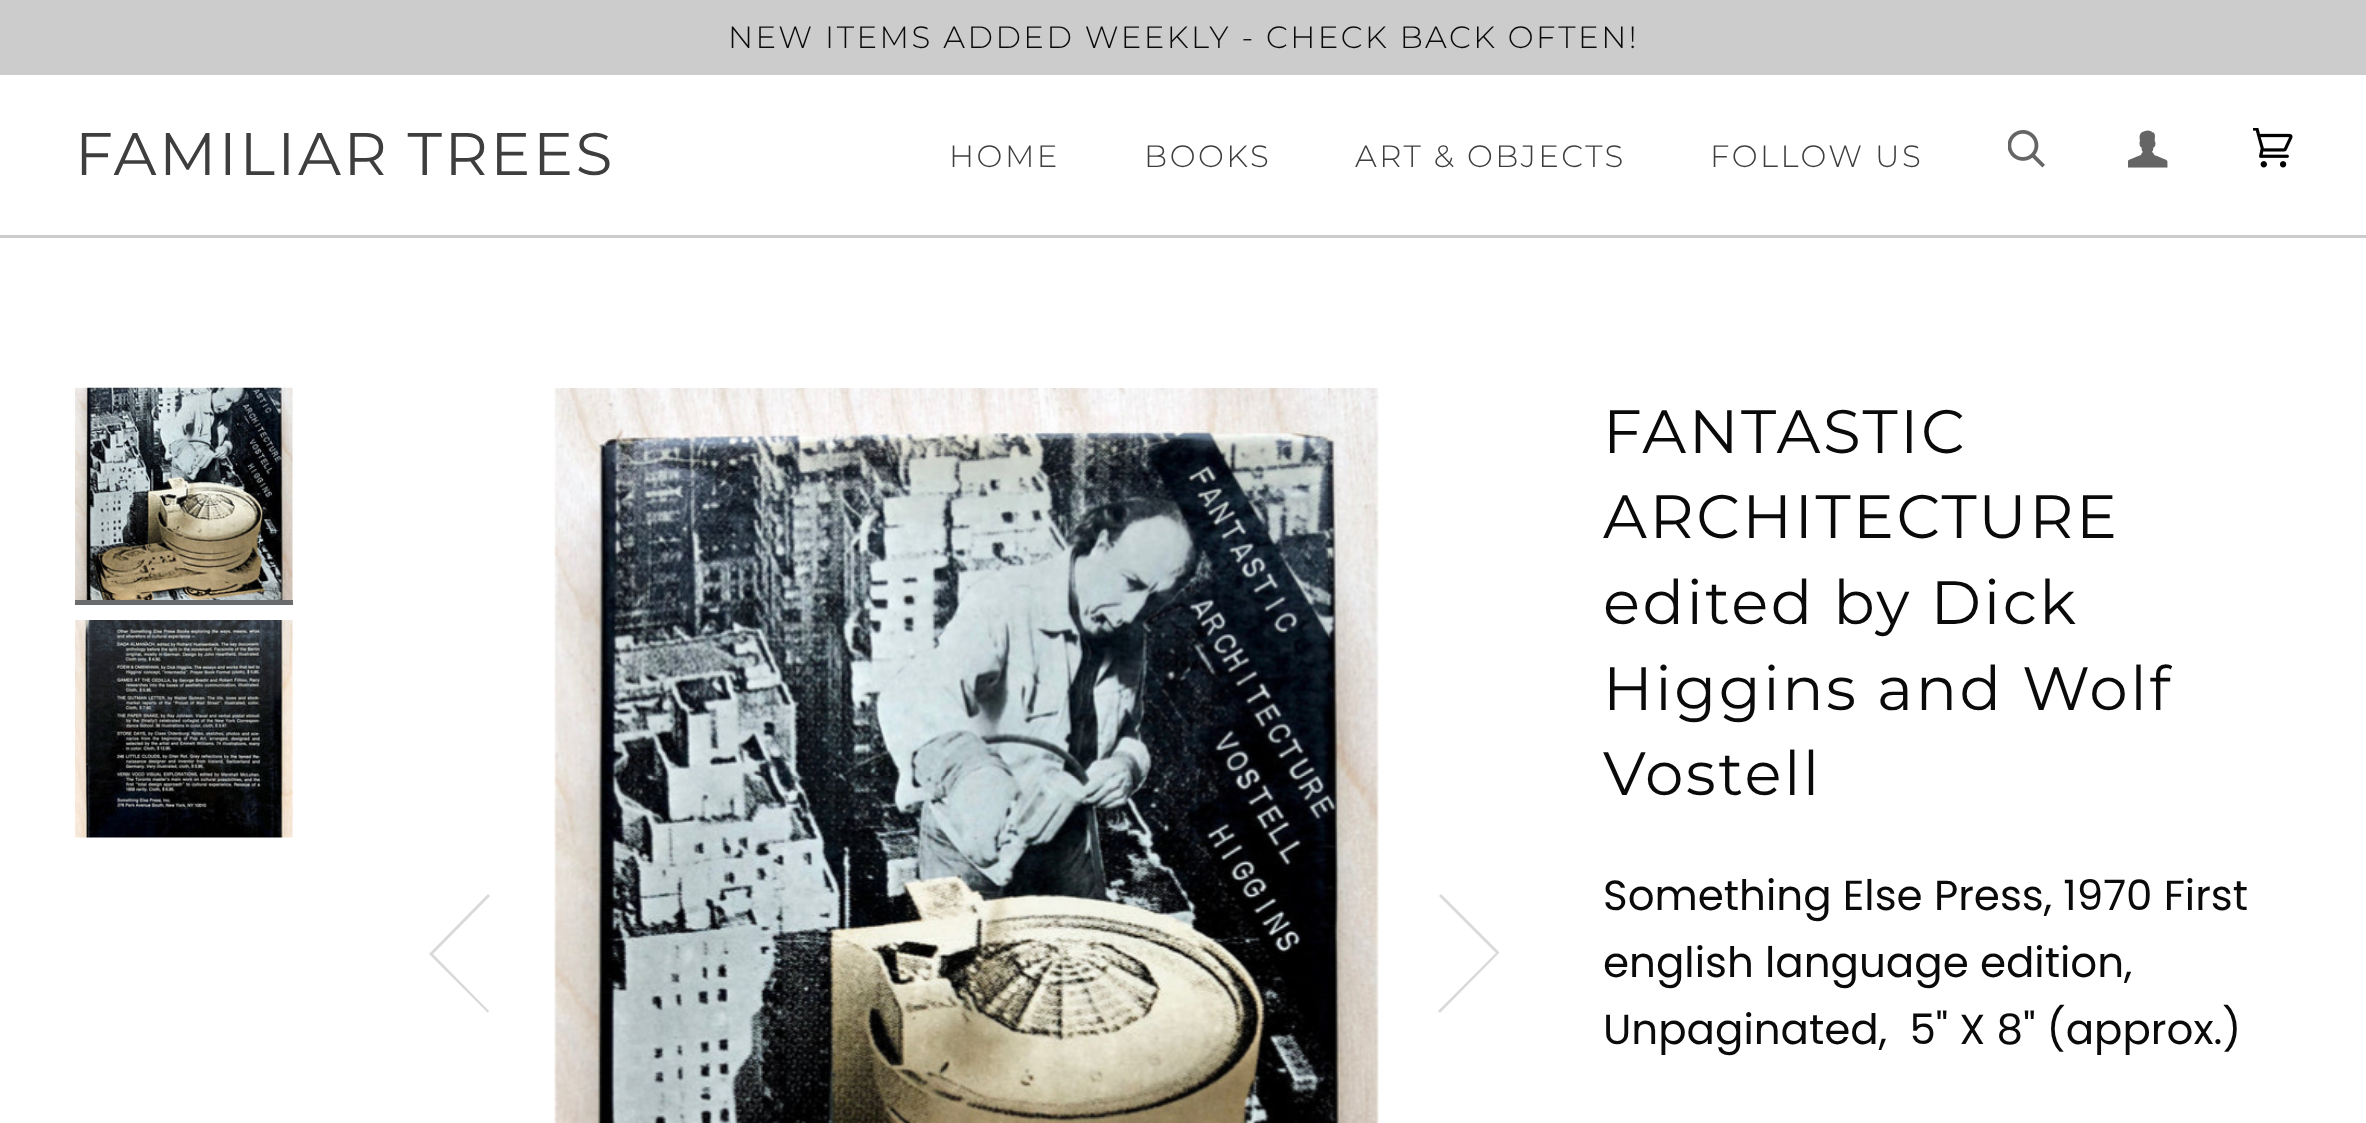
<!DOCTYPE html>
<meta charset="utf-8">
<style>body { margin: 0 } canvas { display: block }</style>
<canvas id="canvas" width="2366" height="1123"></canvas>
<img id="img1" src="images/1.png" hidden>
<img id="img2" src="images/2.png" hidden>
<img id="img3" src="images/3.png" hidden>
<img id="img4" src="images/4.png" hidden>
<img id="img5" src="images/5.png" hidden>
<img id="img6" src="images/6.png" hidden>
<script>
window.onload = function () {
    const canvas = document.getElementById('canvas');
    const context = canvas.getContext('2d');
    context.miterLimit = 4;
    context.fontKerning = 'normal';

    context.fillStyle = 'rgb(255, 255, 255)';
    context.fillRect(0, 0, 2366, 1123);
    context.fillStyle = 'rgb(204, 204, 204)';
    context.fillRect(0, 0, 2366, 75);
    context.fillRect(0, 235, 2366, 3);
    context.drawImage(document.getElementById('img1'), 2008, 130, 37, 38);
    context.drawImage(document.getElementById('img2'), 2128, 130, 40, 38);
    context.drawImage(document.getElementById('img3'), 2253, 128, 40, 40);
    context.drawImage(document.getElementById('img4'), 75, 387, 218, 213);
    context.fillStyle = 'rgb(106, 107, 108)';
    context.fillRect(75, 600, 218, 5);
    context.drawImage(document.getElementById('img5'), 75, 620, 218, 218);
    context.fillStyle = 'rgb(217, 217, 217)';
    context.beginPath();
    context.moveTo(430, 955);
    context.lineTo(488, 1013);
    context.lineTo(489, 1011);
    context.lineTo(433, 954);
    context.lineTo(490, 896);
    context.lineTo(488, 894);
    context.lineTo(429, 954);
    context.closePath();
    context.fill();
    context.drawImage(document.getElementById('img6'), 554, 388, 825, 735);
    context.beginPath();
    context.moveTo(1499, 952);
    context.lineTo(1441, 894);
    context.lineTo(1439, 896);
    context.lineTo(1496, 953);
    context.lineTo(1438, 1011);
    context.lineTo(1440, 1013);
    context.lineTo(1499, 953);
    context.closePath();
    context.fill();
    context.letterSpacing = '2.5px';
    context.font = '300 30.8px Montserrat';
    context.fillStyle = 'rgb(10, 10, 10)';
    context.fillText('NEW ITEMS ADDED WEEKLY - CHECK BACK OFTEN!', 728, 48);
    context.font = '60px Montserrat';
    context.fillStyle = 'rgb(63, 62, 62)';
    context.fillText('FAMILIAR TREES', 75, 175);
    context.font = '300 30.8px Montserrat';
    context.fillText('HOME', 949, 167);
    context.fillText('BOOKS', 1144, 167);
    context.fillText('ART & OBJECTS', 1355, 167);
    context.fillText('FOLLOW US', 1710, 167);
    context.font = '61.25px Montserrat';
    context.fillStyle = 'rgb(10, 10, 10)';
    context.fillText('FANTASTIC', 1603, 453);
    context.fillText('ARCHITECTURE', 1603, 538);
    context.fillText('edited by Dick', 1603, 624);
    context.fillText('Higgins and Wolf', 1603, 710);
    context.fillText('Vostell', 1603, 795);
    context.letterSpacing = '0px';
    context.font = '42px Poppins';
    context.fillText('Something Else Press, 1970 First', 1603, 910);
    context.fillText('english language edition,', 1603, 977);
    context.fillText('Unpaginated,  5" X 8" (approx.)', 1603, 1044);
};
</script>
